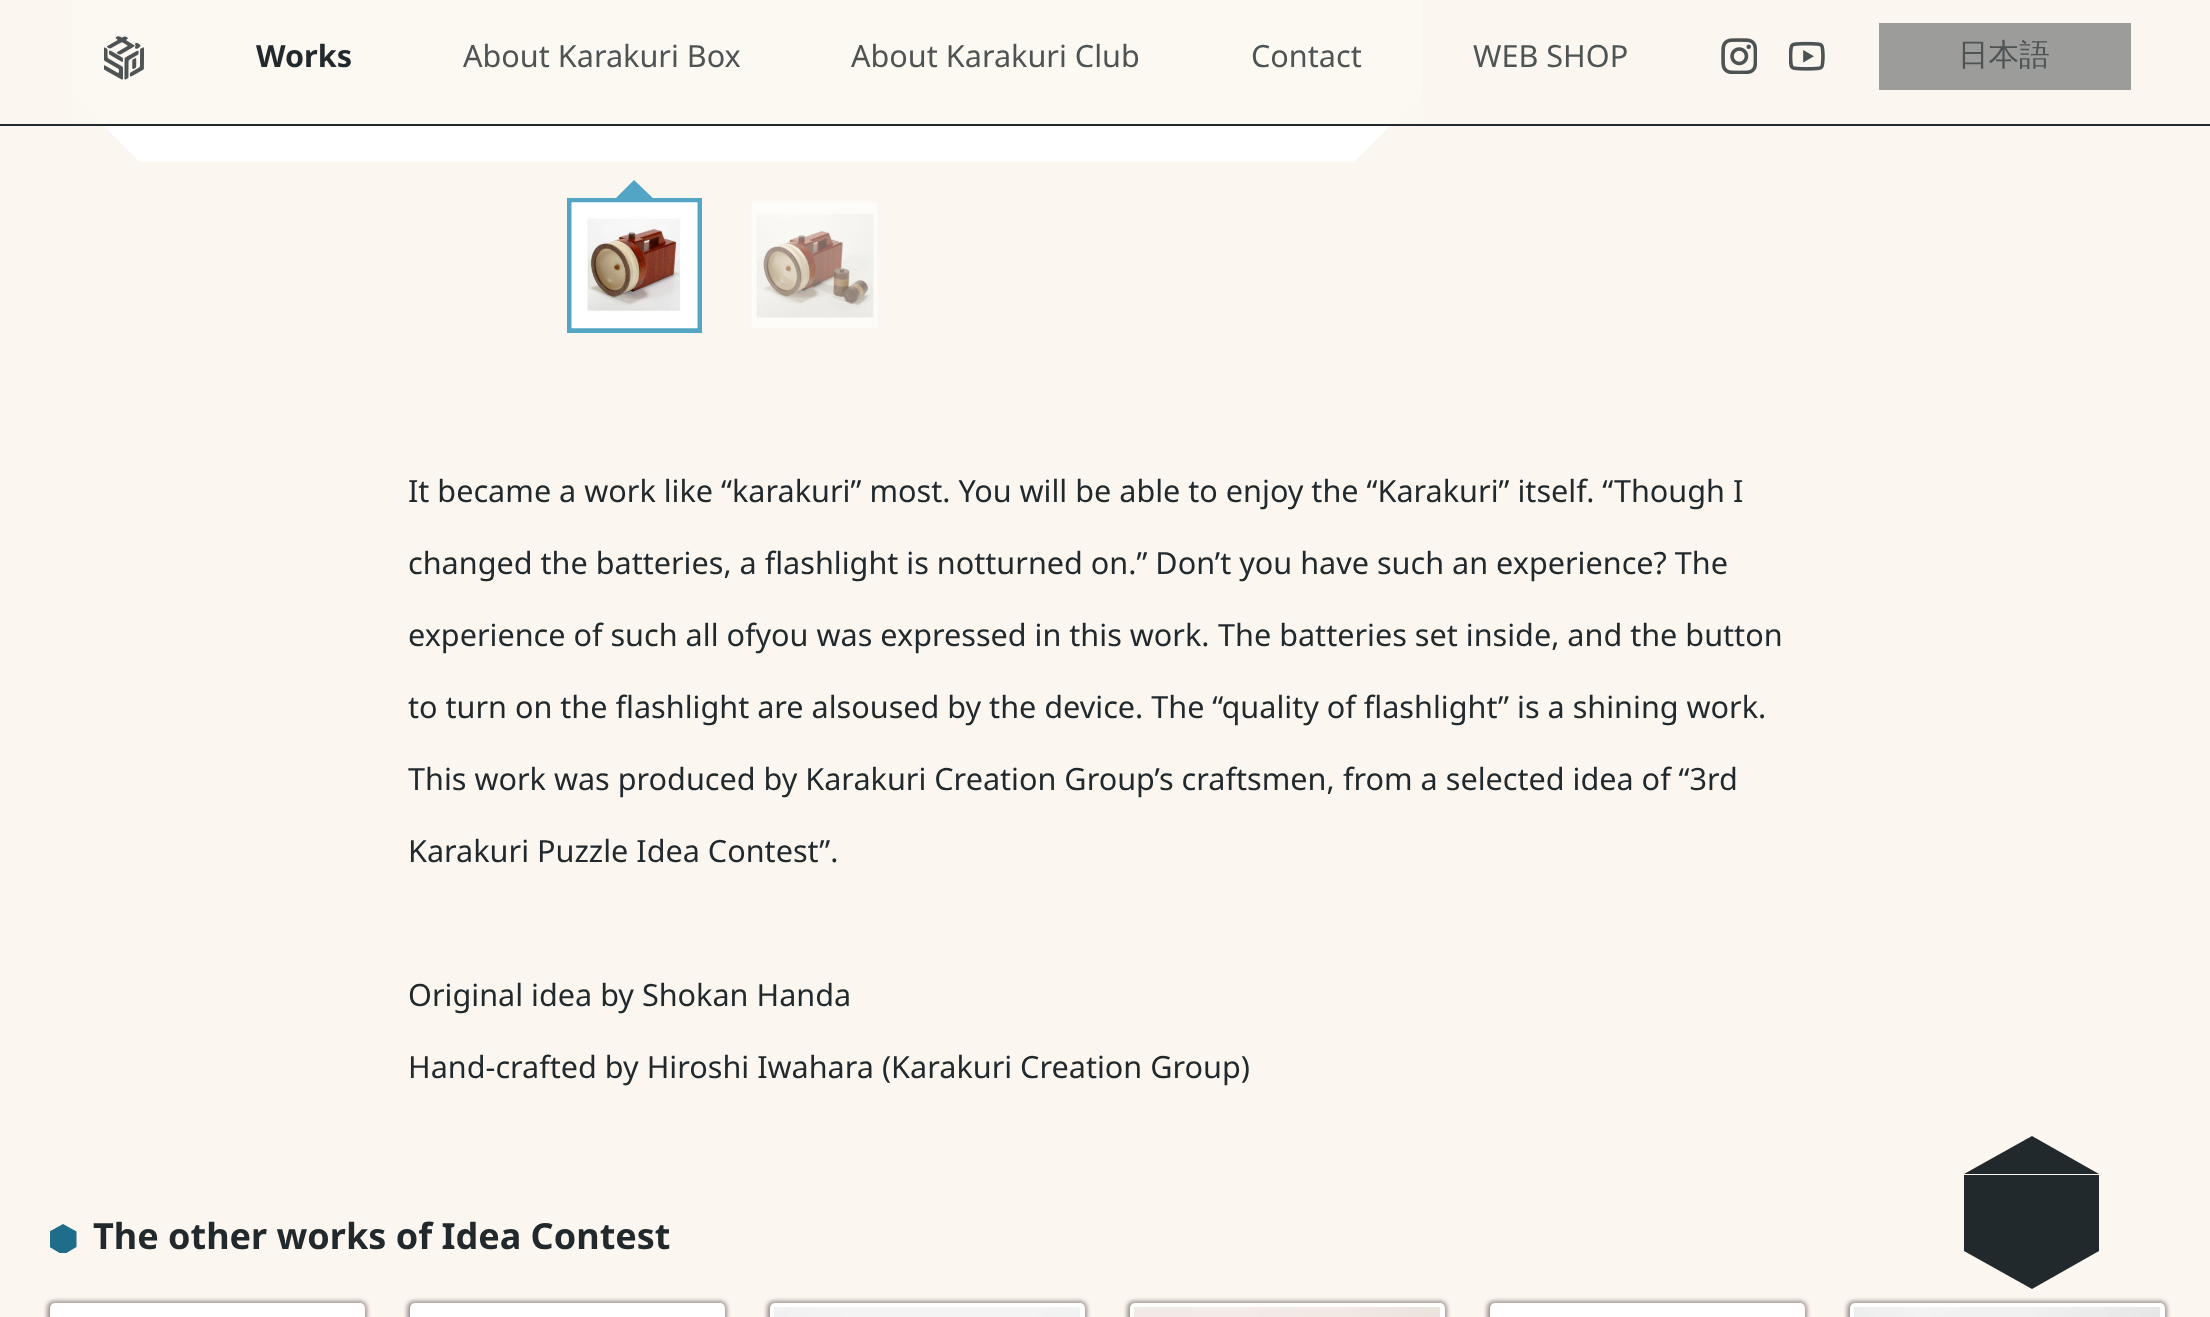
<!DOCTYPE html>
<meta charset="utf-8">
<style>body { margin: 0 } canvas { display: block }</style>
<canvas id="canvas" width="2210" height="1317"></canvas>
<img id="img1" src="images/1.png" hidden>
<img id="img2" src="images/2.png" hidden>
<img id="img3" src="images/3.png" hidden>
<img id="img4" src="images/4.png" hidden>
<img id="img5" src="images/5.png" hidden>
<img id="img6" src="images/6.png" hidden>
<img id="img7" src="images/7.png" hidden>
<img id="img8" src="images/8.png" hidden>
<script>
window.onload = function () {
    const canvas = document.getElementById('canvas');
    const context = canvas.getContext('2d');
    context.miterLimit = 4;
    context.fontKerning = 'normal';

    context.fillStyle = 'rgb(251, 247, 240)';
    context.fillRect(0, 0, 2210, 1317);
    context.fillStyle = 'rgb(255, 255, 255)';
    context.fillRect(72, 0, 1350, 162);
    context.fillStyle = 'rgb(251, 247, 240)';
    context.beginPath();
    context.moveTo(1422, 94);
    context.lineTo(1422, 162);
    context.lineTo(1388, 128);
    context.closePath();
    context.fill();
    context.beginPath();
    context.moveTo(140, 162);
    context.lineTo(72, 162);
    context.lineTo(106, 128);
    context.closePath();
    context.fill();
    context.beginPath();
    context.moveTo(72, 162);
    context.lineTo(72, 94);
    context.lineTo(106, 128);
    context.closePath();
    context.fill();
    context.fillStyle = 'rgba(251, 247, 240, 0.8)';
    context.fillRect(72, 0, 1350, 124);
    context.fillStyle = 'rgb(34, 41, 44)';
    context.fillRect(0, 124, 2210, 2);
    context.drawImage(document.getElementById('img1'), 104, 36, 40, 44);
    context.drawImage(document.getElementById('img2'), 1721, 38, 36, 36);
    context.drawImage(document.getElementById('img3'), 1789, 41, 36, 30);
    context.fillStyle = 'rgb(156, 156, 155)';
    context.fillRect(1879, 23, 252, 67);
    context.fillStyle = 'rgb(251, 247, 240)';
    context.beginPath();
    context.moveTo(1422, 162);
    context.lineTo(1354, 162);
    context.lineTo(1388, 128);
    context.closePath();
    context.fill();
    context.strokeStyle = 'rgb(82, 165, 197)';
    context.lineWidth = 5;
    context.strokeRect(569.5, 200.5, 130, 130);
    context.fillStyle = 'rgb(82, 165, 197)';
    context.beginPath();
    context.moveTo(657, 202);
    context.lineTo(612, 202);
    context.lineTo(634, 180);
    context.closePath();
    context.fill();
    context.drawImage(document.getElementById('img4'), 571, 202, 127, 127);
    context.drawImage(document.getElementById('img5'), 751, 202, 127, 126);
    context.save();
    context.beginPath();
    context.rect(50, 1224, 27, 29);
    context.clip();
    context.fillStyle = 'rgb(31, 109, 138)';
    context.beginPath();
    context.moveTo(63, 1224);
    context.lineTo(49.5, 1231.5);
    context.lineTo(49.5, 1247);
    context.lineTo(63, 1255);
    context.lineTo(76.5, 1247);
    context.lineTo(76.5, 1231.5);
    context.closePath();
    context.fill();
    context.restore();
    context.fillStyle = 'rgba(64, 41, 44, 0.5)';
    context.filter = 'blur(2px)';
    context.beginPath();
    context.roundRect(47, 1301, 320, 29, 7);
    context.fill();
    context.filter = 'none';
    context.fillStyle = 'rgb(255, 255, 255)';
    context.beginPath();
    context.roundRect(52.5, 1305.5, 310, 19, 2.5);
    context.fill();
    context.strokeStyle = 'rgb(255, 255, 255)';
    context.stroke();
    context.fillStyle = 'rgba(64, 41, 44, 0.5)';
    context.filter = 'blur(2px)';
    context.beginPath();
    context.roundRect(407, 1301, 320, 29, 7);
    context.fill();
    context.filter = 'none';
    context.fillStyle = 'rgb(255, 255, 255)';
    context.beginPath();
    context.roundRect(412.5, 1305.5, 310, 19, 2.5);
    context.fill();
    context.stroke();
    context.fillStyle = 'rgba(64, 41, 44, 0.5)';
    context.filter = 'blur(2px)';
    context.beginPath();
    context.roundRect(767, 1301, 320, 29, 7);
    context.fill();
    context.filter = 'none';
    context.beginPath();
    context.roundRect(772.5, 1305.5, 310, 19, 2.5);
    context.stroke();
    context.drawImage(document.getElementById('img6'), 774, 1307, 306, 10);
    context.filter = 'blur(2px)';
    context.beginPath();
    context.roundRect(1127, 1301, 320, 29, 7);
    context.fill();
    context.filter = 'none';
    context.beginPath();
    context.roundRect(1132.5, 1305.5, 310, 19, 2.5);
    context.stroke();
    context.drawImage(document.getElementById('img7'), 1134, 1307, 306, 10);
    context.filter = 'blur(2px)';
    context.beginPath();
    context.roundRect(1487, 1301, 320, 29, 7);
    context.fill();
    context.filter = 'none';
    context.fillStyle = 'rgb(255, 255, 255)';
    context.beginPath();
    context.roundRect(1492.5, 1305.5, 310, 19, 2.5);
    context.fill();
    context.stroke();
    context.fillStyle = 'rgba(64, 41, 44, 0.5)';
    context.filter = 'blur(2px)';
    context.beginPath();
    context.roundRect(1847, 1301, 320, 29, 7);
    context.fill();
    context.filter = 'none';
    context.beginPath();
    context.roundRect(1852.5, 1305.5, 310, 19, 2.5);
    context.stroke();
    context.drawImage(document.getElementById('img8'), 1854, 1307, 306, 10);
    context.fillStyle = 'rgb(34, 41, 44)';
    context.fillRect(1964, 1175, 135, 76);
    context.beginPath();
    context.moveTo(2099, 1174);
    context.lineTo(1964, 1174);
    context.lineTo(2032, 1136);
    context.closePath();
    context.fill();
    context.beginPath();
    context.moveTo(1964, 1251);
    context.lineTo(2099, 1251);
    context.lineTo(2032, 1289);
    context.closePath();
    context.fill();
    context.font = 'bold 30.6px Noto Sans';
    context.fillText('Works', 256, 67);
    context.font = '30.6px Noto Sans';
    context.fillStyle = 'rgb(78, 83, 84)';
    context.fillText('About Karakuri Box', 463, 67);
    context.fillText('About Karakuri Club', 851, 67);
    context.fillText('Contact', 1251, 67);
    context.fillText('WEB SHOP', 1473, 67);
    context.font = '500 30.6px WenQuanYi Zen Hei';
    context.fillText('日本語', 1958, 65);
    context.font = '30.6px Noto Sans';
    context.fillStyle = 'rgb(34, 41, 44)';
    context.fillText('It became a work like “karakuri” most. You will be able to enjoy the “Karakuri” itself. “Though I', 408, 502);
    context.fillText('changed the batteries, a flashlight is notturned on.” Don’t you have such an experience? The', 408, 574);
    context.fillText('experience of such all ofyou was expressed in this work.', 408, 646);
    context.fillText('The batteries set inside, and the button', 1218, 646);
    context.fillText('to turn on the flashlight are alsoused by the device. The “quality of flashlight” is a shining work.', 408, 718);
    context.fillText('This work was produced by Karakuri Creation Group’s craftsmen,', 408, 790);
    context.fillText('from a selected idea of “3rd', 1343, 790);
    context.fillText('Karakuri Puzzle Idea Contest”.', 408, 862);
    context.fillText('Original idea by Shokan Handa', 408, 1006);
    context.fillText('Hand-crafted by Hiroshi Iwahara (Karakuri Creation Group)', 408, 1078);
    context.font = 'bold 36px Noto Sans';
    context.fillText('The other works of Idea Contest', 93, 1249);
};
</script>
